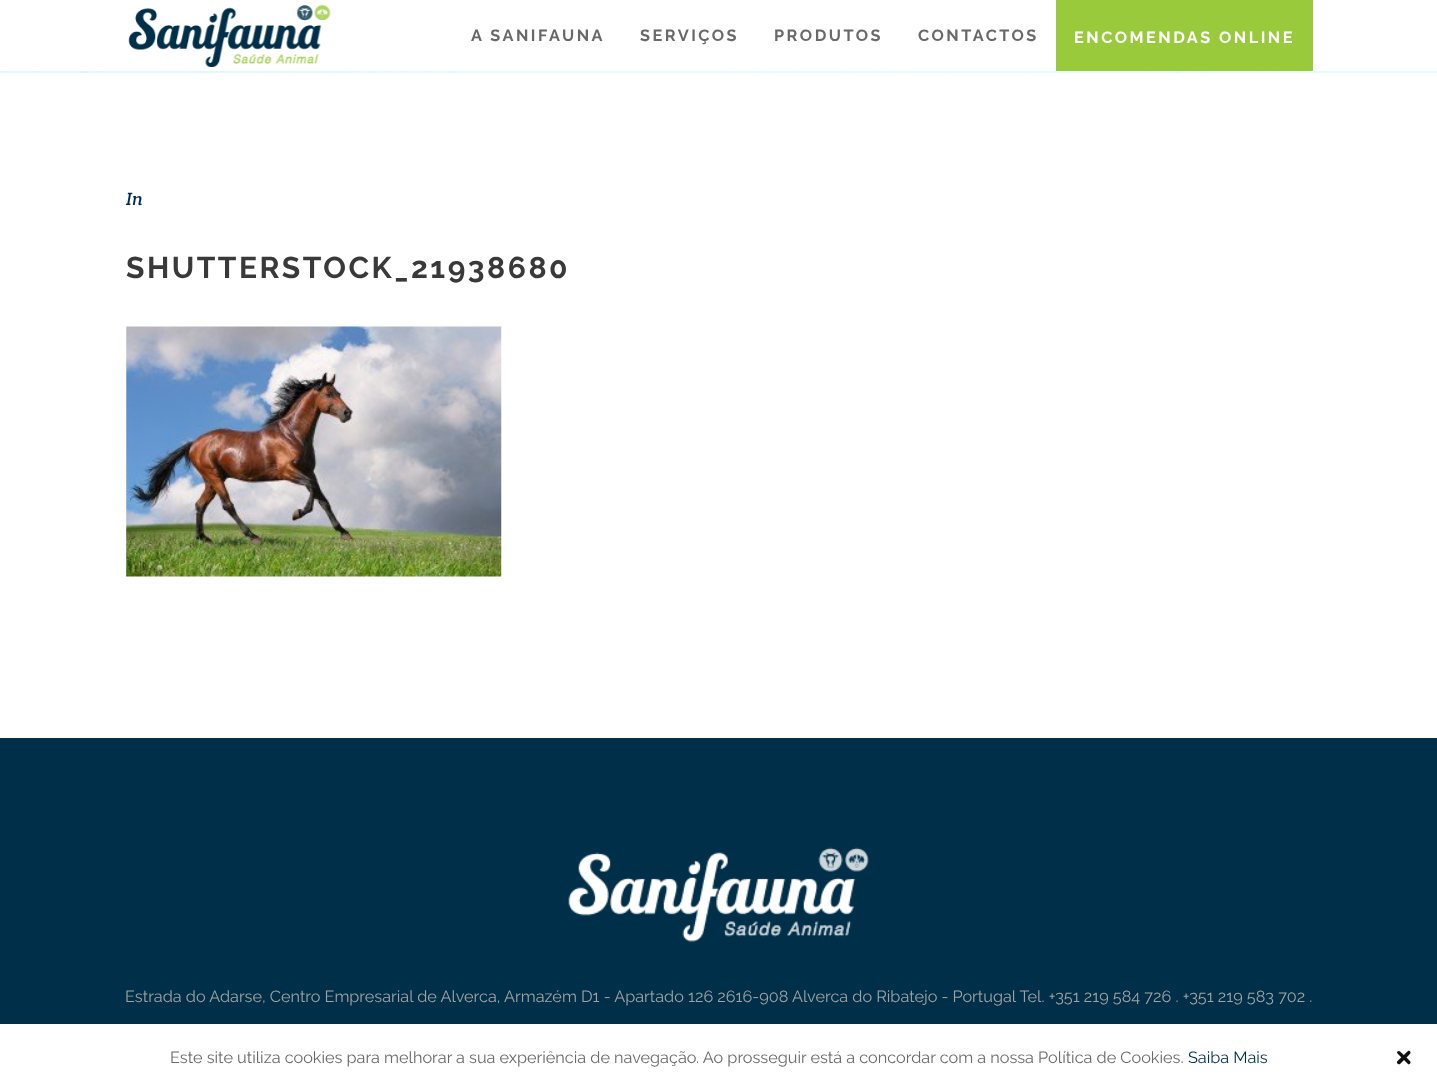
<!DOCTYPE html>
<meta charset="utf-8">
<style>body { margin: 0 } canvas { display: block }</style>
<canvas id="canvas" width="1437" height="1090"></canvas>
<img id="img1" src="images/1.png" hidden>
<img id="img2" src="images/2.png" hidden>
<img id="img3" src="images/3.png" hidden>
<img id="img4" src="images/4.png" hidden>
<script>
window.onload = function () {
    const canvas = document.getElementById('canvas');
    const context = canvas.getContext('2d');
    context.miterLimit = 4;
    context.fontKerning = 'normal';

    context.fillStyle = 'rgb(255, 255, 255)';
    context.fillRect(0, 0, 1437, 1090);
    context.drawImage(document.getElementById('img1'), 128, 5, 203, 62);
    context.fillStyle = 'rgb(153, 202, 60)';
    context.fillRect(1056, 0, 257, 71);
    context.drawImage(document.getElementById('img2'), 0, 71, 1437, 2);
    context.drawImage(document.getElementById('img3'), 126, 326, 376, 251);
    context.fillStyle = 'rgb(0, 48, 73)';
    context.fillRect(0, 738, 1437, 286);
    context.drawImage(document.getElementById('img4'), 568, 847, 301, 95);
    context.fillStyle = 'rgb(17, 17, 17)';
    context.beginPath();
    context.moveTo(1400, 1051.5);
    context.lineTo(1408.5, 1059.5);
    context.bezierCurveTo(1409.5, 1060.5, 1412, 1062.5, 1409.5, 1064);
    context.bezierCurveTo(1409, 1064.5, 1408.5, 1064.5, 1408, 1064);
    context.lineTo(1397.5, 1053.5);
    context.bezierCurveTo(1396, 1052, 1398.5, 1050, 1400, 1051.5);
    context.closePath();
    context.fill();
    context.beginPath();
    context.moveTo(1397.5, 1061);
    context.lineTo(1408, 1051);
    context.bezierCurveTo(1408.5, 1050.5, 1409, 1050.5, 1409.5, 1051);
    context.bezierCurveTo(1412, 1052.5, 1409.5, 1054.5, 1408.5, 1055.5);
    context.lineTo(1400, 1064);
    context.bezierCurveTo(1398, 1065, 1396, 1062.5, 1397.5, 1061);
    context.closePath();
    context.fill();
    context.letterSpacing = '2.5px';
    context.font = 'bold 16.25px Raleway';
    context.fillStyle = 'rgb(105, 105, 105)';
    context.fillText('A SANIFAUNA', 471, 41);
    context.fillText('SERVIÇOS', 640, 41);
    context.fillText('PRODUTOS', 774, 41);
    context.fillText('CONTACTOS', 918, 41);
    context.fillStyle = 'rgb(255, 255, 255)';
    context.fillText('ENCOMENDAS ONLINE', 1074, 43);
    context.letterSpacing = '0px';
    context.font = 'italic 18px Crete Round';
    context.fillStyle = 'rgb(0, 48, 73)';
    context.fillText('In', 126, 205);
    context.letterSpacing = '2.5px';
    context.font = 'bold 30px Raleway';
    context.fillStyle = 'rgb(57, 57, 57)';
    context.fillText('SHUTTERSTOCK_21938680', 126, 278);
    context.letterSpacing = '0px';
    context.font = '16.25px Raleway';
    context.fillStyle = 'rgb(162, 162, 162)';
    context.fillText('Estrada do Adarse, Centro Empresarial de Alverca, Armazém D1 - Apartado 126 2616-908 Alverca do Ribatejo - Portugal Tel. +351 219 584 726 . +351 219 583 702 .', 125, 1002);
    context.fillStyle = 'rgb(105, 105, 105)';
    context.fillText('Este site utiliza cookies para melhorar a sua experiência de navegação. Ao prosseguir está a concordar com a nossa Política de Cookies.', 170, 1063);
    context.fillStyle = 'rgb(0, 48, 73)';
    context.fillText('Saiba Mais', 1188, 1063);
};
</script>
